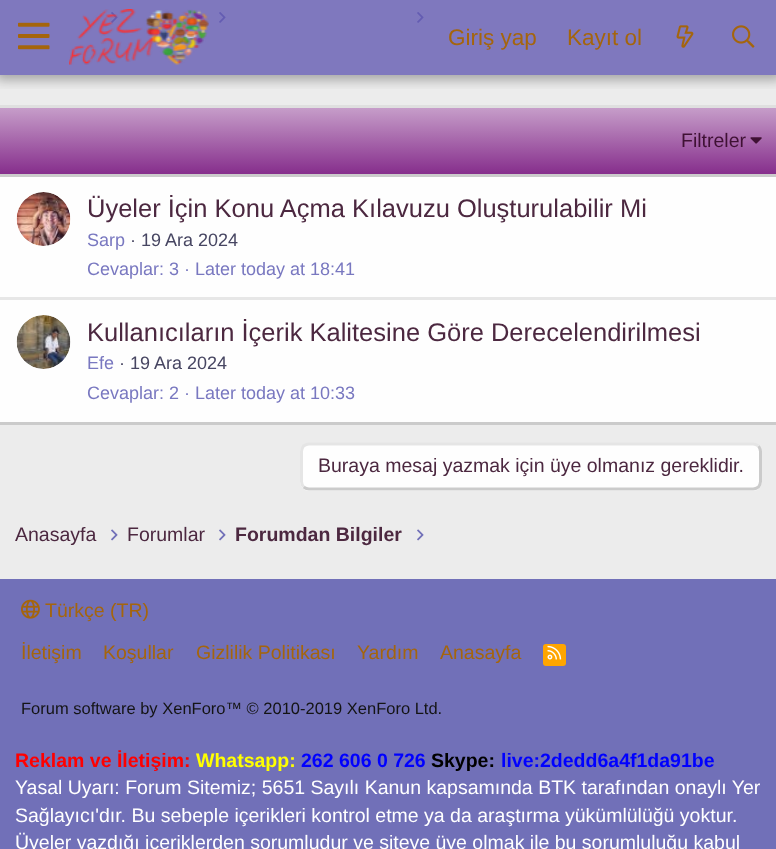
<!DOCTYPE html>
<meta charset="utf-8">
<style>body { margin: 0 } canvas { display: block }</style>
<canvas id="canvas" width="776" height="849"></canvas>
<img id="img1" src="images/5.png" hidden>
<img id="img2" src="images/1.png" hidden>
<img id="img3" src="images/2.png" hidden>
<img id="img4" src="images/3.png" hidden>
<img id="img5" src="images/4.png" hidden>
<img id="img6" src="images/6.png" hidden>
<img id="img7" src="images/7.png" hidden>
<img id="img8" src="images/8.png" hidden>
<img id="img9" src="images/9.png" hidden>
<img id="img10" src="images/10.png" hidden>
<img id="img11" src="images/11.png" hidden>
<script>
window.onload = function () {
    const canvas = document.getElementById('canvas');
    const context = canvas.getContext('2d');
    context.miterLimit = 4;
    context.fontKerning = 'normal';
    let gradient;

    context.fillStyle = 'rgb(236, 236, 236)';
    context.fillRect(0, 0, 776, 849);
    context.drawImage(document.getElementById('img1'), 111, 12, 7, 11);
    context.drawImage(document.getElementById('img1'), 219, 12, 7, 11);
    context.drawImage(document.getElementById('img1'), 417, 12, 7, 11);
    context.save();
    context.beginPath();
    context.rect(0, 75, 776, 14);
    context.clip();
    context.fillStyle = 'rgba(0, 0, 0, 0.3)';
    context.filter = 'blur(6px)';
    context.beginPath();
    context.rect(-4, -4, 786, 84);
    context.fill();
    context.filter = 'none';
    context.restore();
    context.fillStyle = 'rgba(96, 87, 177, 0.78)';
    context.fillRect(0, 0, 776, 75);
    context.drawImage(document.getElementById('img2'), 18, 22, 32, 28);
    context.drawImage(document.getElementById('img3'), 69, 9, 140, 56);
    context.drawImage(document.getElementById('img4'), 676, 25, 18, 23);
    context.drawImage(document.getElementById('img5'), 732, 25, 23, 23);
    context.fillStyle = 'rgb(254, 254, 254)';
    context.fillRect(0, 177, 776, 245);
    context.fillStyle = 'rgb(223, 223, 223)';
    context.fillRect(0, 105, 776, 3);
    context.fillStyle = 'rgb(203, 203, 203)';
    context.fillRect(0, 422, 776, 3);
    gradient = context.createLinearGradient(389, 174, 389, 108);
    gradient.addColorStop(0, 'rgb(134, 46, 140)');
    gradient.addColorStop(1, 'rgb(198, 157, 201)');
    context.fillStyle = gradient;
    context.fillRect(0, 108, 776, 66);
    context.fillStyle = 'rgb(203, 203, 203)';
    context.fillRect(0, 174, 776, 3);
    context.drawImage(document.getElementById('img6'), 750, 137, 12, 7);
    context.drawImage(document.getElementById('img7'), 16, 192, 55, 54);
    context.fillStyle = 'rgb(231, 231, 231)';
    context.fillRect(0, 297, 776, 3);
    context.drawImage(document.getElementById('img8'), 16, 315, 55, 54);
    context.fillStyle = 'rgb(254, 254, 254)';
    context.beginPath();
    context.roundRect(300, 443, 462, 48, 9);
    context.fill();
    context.beginPath();
    context.moveTo(758.5, 446);
    context.bezierCurveTo(759.5, 447.5, 760.5, 449.5, 760.5, 451.5);
    context.lineTo(760.5, 481.5);
    context.bezierCurveTo(760.5, 483.5, 759.5, 485.5, 758.5, 487);
    context.bezierCurveTo(757, 488, 755, 489, 753, 489);
    context.lineTo(309, 489);
    context.bezierCurveTo(307, 489, 305, 488, 303.5, 487);
    context.strokeStyle = 'rgb(203, 203, 203)';
    context.lineWidth = 3;
    context.stroke();
    context.beginPath();
    context.moveTo(303.5, 487);
    context.bezierCurveTo(302.5, 485.5, 301.5, 483.5, 301.5, 481.5);
    context.lineTo(301.5, 451.5);
    context.bezierCurveTo(301.5, 449.5, 302.5, 447.5, 303.5, 446);
    context.bezierCurveTo(305, 445, 307, 444, 309, 444);
    context.lineTo(753, 444);
    context.bezierCurveTo(755, 444, 757, 445, 758.5, 446);
    context.strokeStyle = 'rgb(229, 229, 229)';
    context.stroke();
    context.drawImage(document.getElementById('img9'), 111, 529, 7, 12);
    context.drawImage(document.getElementById('img9'), 219, 529, 7, 12);
    context.drawImage(document.getElementById('img9'), 417, 529, 7, 12);
    context.fillStyle = 'rgb(113, 112, 184)';
    context.fillRect(0, 579, 776, 270);
    context.drawImage(document.getElementById('img10'), 21, 599, 19, 20);
    context.fillStyle = 'rgb(255, 165, 0)';
    context.beginPath();
    context.roundRect(543, 644, 23, 22, 3);
    context.fill();
    context.drawImage(document.getElementById('img11'), 547, 645, 15, 15);
    context.font = '22.5px Liberation Sans';
    context.fillStyle = 'rgb(165, 101, 12)';
    context.fillText('Giriş yap', 448, 45);
    context.fillText('Kayıt ol', 567, 45);
    context.font = '19.5px Liberation Sans';
    context.fillStyle = 'rgb(63, 17, 52)';
    context.fillText('Filtreler', 681, 147);
    context.font = '25.5px Liberation Sans';
    context.fillStyle = 'rgb(76, 40, 64)';
    context.fillText('Üyeler İçin Konu Açma Kılavuzu Oluşturulabilir Mi', 87, 217);
    context.font = '18px Liberation Sans';
    context.fillStyle = 'rgb(121, 120, 192)';
    context.fillText('Sarp', 87, 246);
    context.fillStyle = 'rgb(71, 70, 98)';
    context.fillText('· 19 Ara 2024', 130, 246);
    context.fillStyle = 'rgb(121, 120, 192)';
    context.fillText('Cevaplar: 3', 87, 275);
    context.fillText('· Later today at 18:41', 184, 275);
    context.font = '25.5px Liberation Sans';
    context.fillStyle = 'rgb(76, 40, 64)';
    context.fillText('Kullanıcıların İçerik Kalitesine Göre Derecelendirilmesi', 87, 341);
    context.font = '18px Liberation Sans';
    context.fillStyle = 'rgb(121, 120, 192)';
    context.fillText('Efe', 87, 369);
    context.fillStyle = 'rgb(71, 70, 98)';
    context.fillText('· 19 Ara 2024', 119, 369);
    context.fillStyle = 'rgb(121, 120, 192)';
    context.fillText('Cevaplar: 2', 87, 399);
    context.fillText('· Later today at 10:33', 184, 399);
    context.font = '19.5px Liberation Sans';
    context.fillStyle = 'rgb(76, 40, 64)';
    context.fillText('Buraya mesaj yazmak için üye olmanız gereklidir.', 318, 472);
    context.fillText('Anasayfa', 15, 541);
    context.fillText('Forumlar', 127, 541);
    context.font = 'bold 19.5px Liberation Sans';
    context.fillText('Forumdan Bilgiler', 235, 541);
    context.font = '19.5px Liberation Sans';
    context.fillStyle = 'rgb(165, 101, 12)';
    context.fillText('Türkçe (TR)', 45, 617);
    context.fillText('İletişim', 21, 659);
    context.fillText('Koşullar', 103, 659);
    context.fillText('Gizlilik Politikası', 196, 659);
    context.fillText('Yardım', 357, 659);
    context.fillText('Anasayfa', 440, 659);
    context.font = '16.5px Liberation Sans';
    context.fillStyle = 'rgb(20, 20, 20)';
    context.fillText('Forum software by XenForo™ © 2010-2019 XenForo Ltd.', 21, 714);
    context.font = 'bold 19.5px Liberation Sans';
    context.fillStyle = 'rgb(255, 0, 0)';
    context.fillText('Reklam ve İletişim:', 15, 767);
    context.fillStyle = 'rgb(255, 255, 0)';
    context.fillText('Whatsapp:', 196, 767);
    context.fillStyle = 'rgb(0, 0, 255)';
    context.fillText('262 606 0 726', 301, 767);
    context.fillStyle = 'rgb(0, 0, 0)';
    context.fillText('Skype:', 431, 767);
    context.fillStyle = 'rgb(0, 0, 255)';
    context.fillText('live:2dedd6a4f1da91be', 501, 767);
    context.font = '19.5px Liberation Sans';
    context.fillStyle = 'rgb(255, 255, 255)';
    context.fillText('Yasal Uyarı: Forum Sitemiz; 5651 Sayılı Kanun kapsamında BTK tarafından onaylı Yer', 15, 794);
    context.fillText('Sağlayıcı\'dır. Bu sebeple içerikleri kontrol etme ya da araştırma yükümlülüğü yoktur.', 15, 822);
    context.fillText('Üyeler yazdığı içeriklerden sorumludur ve siteye üye olmak ile bu sorumluluğu kabul', 15, 849);
};
</script>
